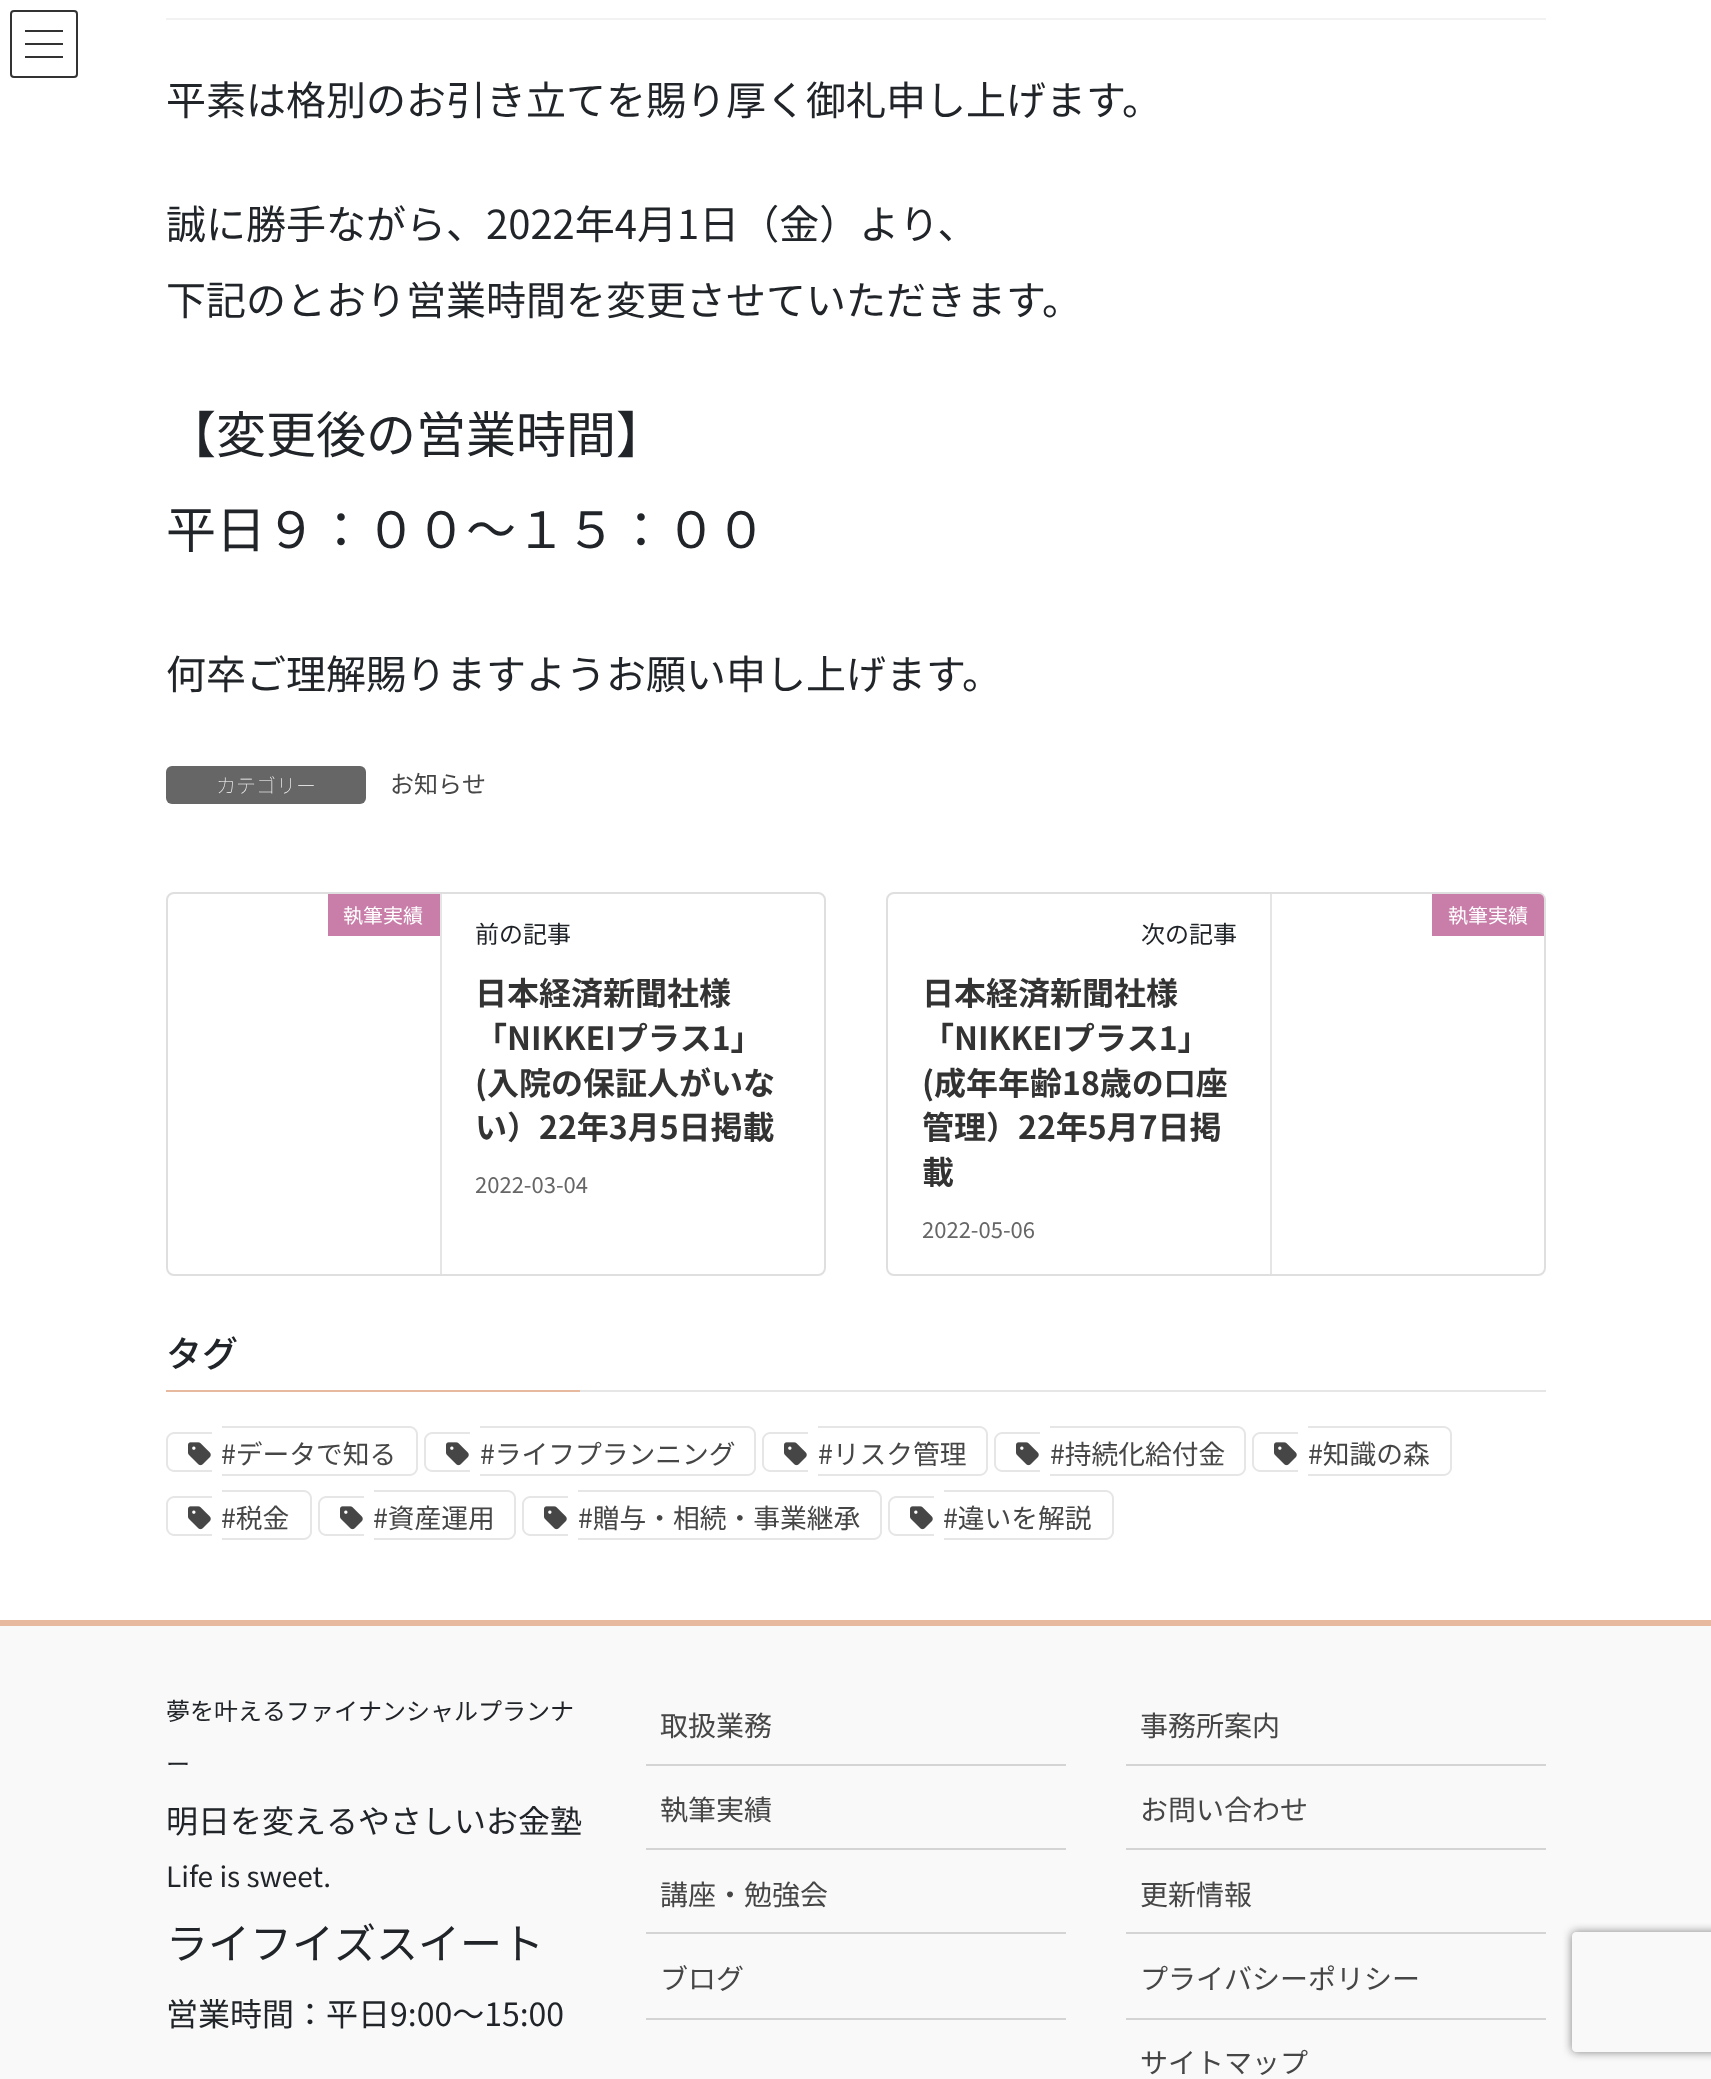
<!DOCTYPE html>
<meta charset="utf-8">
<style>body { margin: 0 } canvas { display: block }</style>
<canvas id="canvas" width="1711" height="2079"></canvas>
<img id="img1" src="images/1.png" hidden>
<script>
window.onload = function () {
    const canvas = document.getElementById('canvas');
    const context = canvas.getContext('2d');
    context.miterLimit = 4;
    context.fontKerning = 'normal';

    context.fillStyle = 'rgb(255, 255, 255)';
    context.fillRect(0, 0, 1711, 2079);
    context.fillStyle = 'rgb(51, 51, 51)';
    context.fillRect(25, 30, 38, 2);
    context.fillRect(25, 43, 38, 2);
    context.fillRect(25, 56, 38, 2);
    context.beginPath();
    context.roundRect(11, 11, 66, 66, 3);
    context.strokeStyle = 'rgb(51, 51, 51)';
    context.lineWidth = 2;
    context.stroke();
    context.fillStyle = 'rgb(242, 242, 242)';
    context.fillRect(166, 18, 1380, 2);
    context.fillStyle = 'rgb(102, 102, 102)';
    context.beginPath();
    context.roundRect(166, 766, 200, 38, 6);
    context.fill();
    context.beginPath();
    context.roundRect(167, 893, 658, 382, 7);
    context.strokeStyle = 'rgb(223, 223, 223)';
    context.stroke();
    context.fillStyle = 'rgb(229, 229, 229)';
    context.fillRect(440, 894, 2, 380);
    context.fillStyle = 'rgb(201, 126, 169)';
    context.fillRect(328, 894, 112, 42);
    context.beginPath();
    context.roundRect(887, 893, 658, 382, 7);
    context.stroke();
    context.fillStyle = 'rgb(229, 229, 229)';
    context.fillRect(1270, 894, 2, 380);
    context.fillStyle = 'rgb(201, 126, 169)';
    context.beginPath();
    context.roundRect(1432, 894, 112, 42, [0, 5, 0, 0]);
    context.fill();
    context.fillStyle = 'rgb(230, 230, 230)';
    context.fillRect(580, 1390, 966, 2);
    context.fillStyle = 'rgb(231, 186, 160)';
    context.fillRect(166, 1390, 414, 2);
    context.fillStyle = 'rgb(230, 230, 230)';
    context.beginPath();
    context.moveTo(174, 1432);
    context.lineTo(212, 1432);
    context.lineTo(212, 1472);
    context.lineTo(174, 1472);
    context.bezierCurveTo(170, 1472, 166, 1468, 166, 1464);
    context.lineTo(166, 1440);
    context.bezierCurveTo(166, 1436, 170, 1432, 174, 1432);
    context.closePath();
    context.moveTo(174, 1434);
    context.lineTo(212, 1434);
    context.lineTo(212, 1470);
    context.lineTo(174, 1470);
    context.bezierCurveTo(171, 1470, 168, 1467, 168, 1464);
    context.lineTo(168, 1440);
    context.bezierCurveTo(168, 1437, 171, 1434, 174, 1434);
    context.closePath();
    context.fill('evenodd');
    context.drawImage(document.getElementById('img1'), 188, 1442, 23, 24);
    context.beginPath();
    context.moveTo(222, 1426);
    context.lineTo(410, 1426);
    context.bezierCurveTo(414, 1426, 418, 1430, 418, 1434);
    context.lineTo(418, 1468);
    context.bezierCurveTo(418, 1472, 414, 1476, 410, 1476);
    context.lineTo(222, 1476);
    context.closePath();
    context.moveTo(222, 1428);
    context.lineTo(410, 1428);
    context.bezierCurveTo(413, 1428, 416, 1431, 416, 1434);
    context.lineTo(416, 1468);
    context.bezierCurveTo(416, 1471, 413, 1474, 410, 1474);
    context.lineTo(222, 1474);
    context.closePath();
    context.fill('evenodd');
    context.beginPath();
    context.moveTo(432, 1432);
    context.lineTo(470, 1432);
    context.lineTo(470, 1472);
    context.lineTo(432, 1472);
    context.bezierCurveTo(428, 1472, 424, 1468, 424, 1464);
    context.lineTo(424, 1440);
    context.bezierCurveTo(424, 1436, 428, 1432, 432, 1432);
    context.closePath();
    context.moveTo(432, 1434);
    context.lineTo(470, 1434);
    context.lineTo(470, 1470);
    context.lineTo(432, 1470);
    context.bezierCurveTo(429, 1470, 426, 1467, 426, 1464);
    context.lineTo(426, 1440);
    context.bezierCurveTo(426, 1437, 429, 1434, 432, 1434);
    context.closePath();
    context.fill('evenodd');
    context.drawImage(document.getElementById('img1'), 446, 1442, 23, 24);
    context.beginPath();
    context.moveTo(480, 1426);
    context.lineTo(748, 1426);
    context.bezierCurveTo(752, 1426, 756, 1430, 756, 1434);
    context.lineTo(756, 1468);
    context.bezierCurveTo(756, 1472, 752, 1476, 748, 1476);
    context.lineTo(480, 1476);
    context.closePath();
    context.moveTo(480, 1428);
    context.lineTo(748, 1428);
    context.bezierCurveTo(751, 1428, 754, 1431, 754, 1434);
    context.lineTo(754, 1468);
    context.bezierCurveTo(754, 1471, 751, 1474, 748, 1474);
    context.lineTo(480, 1474);
    context.closePath();
    context.fill('evenodd');
    context.beginPath();
    context.moveTo(770, 1432);
    context.lineTo(808, 1432);
    context.lineTo(808, 1472);
    context.lineTo(770, 1472);
    context.bezierCurveTo(766, 1472, 762, 1468, 762, 1464);
    context.lineTo(762, 1440);
    context.bezierCurveTo(762, 1436, 766, 1432, 770, 1432);
    context.closePath();
    context.moveTo(770, 1434);
    context.lineTo(808, 1434);
    context.lineTo(808, 1470);
    context.lineTo(770, 1470);
    context.bezierCurveTo(767, 1470, 764, 1467, 764, 1464);
    context.lineTo(764, 1440);
    context.bezierCurveTo(764, 1437, 767, 1434, 770, 1434);
    context.closePath();
    context.fill('evenodd');
    context.drawImage(document.getElementById('img1'), 784, 1442, 23, 24);
    context.beginPath();
    context.moveTo(818, 1426);
    context.lineTo(980, 1426);
    context.bezierCurveTo(984, 1426, 988, 1430, 988, 1434);
    context.lineTo(988, 1468);
    context.bezierCurveTo(988, 1472, 984, 1476, 980, 1476);
    context.lineTo(818, 1476);
    context.closePath();
    context.moveTo(818, 1428);
    context.lineTo(980, 1428);
    context.bezierCurveTo(983, 1428, 986, 1431, 986, 1434);
    context.lineTo(986, 1468);
    context.bezierCurveTo(986, 1471, 983, 1474, 980, 1474);
    context.lineTo(818, 1474);
    context.closePath();
    context.fill('evenodd');
    context.beginPath();
    context.moveTo(1002, 1432);
    context.lineTo(1040, 1432);
    context.lineTo(1040, 1472);
    context.lineTo(1002, 1472);
    context.bezierCurveTo(998, 1472, 994, 1468, 994, 1464);
    context.lineTo(994, 1440);
    context.bezierCurveTo(994, 1436, 998, 1432, 1002, 1432);
    context.closePath();
    context.moveTo(1002, 1434);
    context.lineTo(1040, 1434);
    context.lineTo(1040, 1470);
    context.lineTo(1002, 1470);
    context.bezierCurveTo(999, 1470, 996, 1467, 996, 1464);
    context.lineTo(996, 1440);
    context.bezierCurveTo(996, 1437, 999, 1434, 1002, 1434);
    context.closePath();
    context.fill('evenodd');
    context.drawImage(document.getElementById('img1'), 1016, 1442, 23, 24);
    context.beginPath();
    context.moveTo(1050, 1426);
    context.lineTo(1238, 1426);
    context.bezierCurveTo(1242, 1426, 1246, 1430, 1246, 1434);
    context.lineTo(1246, 1468);
    context.bezierCurveTo(1246, 1472, 1242, 1476, 1238, 1476);
    context.lineTo(1050, 1476);
    context.closePath();
    context.moveTo(1050, 1428);
    context.lineTo(1238, 1428);
    context.bezierCurveTo(1241, 1428, 1244, 1431, 1244, 1434);
    context.lineTo(1244, 1468);
    context.bezierCurveTo(1244, 1471, 1241, 1474, 1238, 1474);
    context.lineTo(1050, 1474);
    context.closePath();
    context.fill('evenodd');
    context.beginPath();
    context.moveTo(1260, 1432);
    context.lineTo(1298, 1432);
    context.lineTo(1298, 1472);
    context.lineTo(1260, 1472);
    context.bezierCurveTo(1256, 1472, 1252, 1468, 1252, 1464);
    context.lineTo(1252, 1440);
    context.bezierCurveTo(1252, 1436, 1256, 1432, 1260, 1432);
    context.closePath();
    context.moveTo(1260, 1434);
    context.lineTo(1298, 1434);
    context.lineTo(1298, 1470);
    context.lineTo(1260, 1470);
    context.bezierCurveTo(1257, 1470, 1254, 1467, 1254, 1464);
    context.lineTo(1254, 1440);
    context.bezierCurveTo(1254, 1437, 1257, 1434, 1260, 1434);
    context.closePath();
    context.fill('evenodd');
    context.drawImage(document.getElementById('img1'), 1274, 1442, 23, 24);
    context.beginPath();
    context.moveTo(1308, 1426);
    context.lineTo(1444, 1426);
    context.bezierCurveTo(1448, 1426, 1452, 1430, 1452, 1434);
    context.lineTo(1452, 1468);
    context.bezierCurveTo(1452, 1472, 1448, 1476, 1444, 1476);
    context.lineTo(1308, 1476);
    context.closePath();
    context.moveTo(1308, 1428);
    context.lineTo(1444, 1428);
    context.bezierCurveTo(1447, 1428, 1450, 1431, 1450, 1434);
    context.lineTo(1450, 1468);
    context.bezierCurveTo(1450, 1471, 1447, 1474, 1444, 1474);
    context.lineTo(1308, 1474);
    context.closePath();
    context.fill('evenodd');
    context.beginPath();
    context.moveTo(174, 1496);
    context.lineTo(212, 1496);
    context.lineTo(212, 1536);
    context.lineTo(174, 1536);
    context.bezierCurveTo(170, 1536, 166, 1532, 166, 1528);
    context.lineTo(166, 1504);
    context.bezierCurveTo(166, 1500, 170, 1496, 174, 1496);
    context.closePath();
    context.moveTo(174, 1498);
    context.lineTo(212, 1498);
    context.lineTo(212, 1534);
    context.lineTo(174, 1534);
    context.bezierCurveTo(171, 1534, 168, 1531, 168, 1528);
    context.lineTo(168, 1504);
    context.bezierCurveTo(168, 1501, 171, 1498, 174, 1498);
    context.closePath();
    context.fill('evenodd');
    context.drawImage(document.getElementById('img1'), 188, 1506, 23, 24);
    context.beginPath();
    context.moveTo(222, 1490);
    context.lineTo(304, 1490);
    context.bezierCurveTo(308, 1490, 312, 1494, 312, 1498);
    context.lineTo(312, 1532);
    context.bezierCurveTo(312, 1536, 308, 1540, 304, 1540);
    context.lineTo(222, 1540);
    context.closePath();
    context.moveTo(222, 1492);
    context.lineTo(304, 1492);
    context.bezierCurveTo(307, 1492, 310, 1495, 310, 1498);
    context.lineTo(310, 1532);
    context.bezierCurveTo(310, 1535, 307, 1538, 304, 1538);
    context.lineTo(222, 1538);
    context.closePath();
    context.fill('evenodd');
    context.beginPath();
    context.moveTo(326, 1496);
    context.lineTo(364, 1496);
    context.lineTo(364, 1536);
    context.lineTo(326, 1536);
    context.bezierCurveTo(322, 1536, 318, 1532, 318, 1528);
    context.lineTo(318, 1504);
    context.bezierCurveTo(318, 1500, 322, 1496, 326, 1496);
    context.closePath();
    context.moveTo(326, 1498);
    context.lineTo(364, 1498);
    context.lineTo(364, 1534);
    context.lineTo(326, 1534);
    context.bezierCurveTo(323, 1534, 320, 1531, 320, 1528);
    context.lineTo(320, 1504);
    context.bezierCurveTo(320, 1501, 323, 1498, 326, 1498);
    context.closePath();
    context.fill('evenodd');
    context.drawImage(document.getElementById('img1'), 340, 1506, 23, 24);
    context.beginPath();
    context.moveTo(374, 1490);
    context.lineTo(508, 1490);
    context.bezierCurveTo(512, 1490, 516, 1494, 516, 1498);
    context.lineTo(516, 1532);
    context.bezierCurveTo(516, 1536, 512, 1540, 508, 1540);
    context.lineTo(374, 1540);
    context.closePath();
    context.moveTo(374, 1492);
    context.lineTo(508, 1492);
    context.bezierCurveTo(511, 1492, 514, 1495, 514, 1498);
    context.lineTo(514, 1532);
    context.bezierCurveTo(514, 1535, 511, 1538, 508, 1538);
    context.lineTo(374, 1538);
    context.closePath();
    context.fill('evenodd');
    context.beginPath();
    context.moveTo(530, 1496);
    context.lineTo(568, 1496);
    context.lineTo(568, 1536);
    context.lineTo(530, 1536);
    context.bezierCurveTo(526, 1536, 522, 1532, 522, 1528);
    context.lineTo(522, 1504);
    context.bezierCurveTo(522, 1500, 526, 1496, 530, 1496);
    context.closePath();
    context.moveTo(530, 1498);
    context.lineTo(568, 1498);
    context.lineTo(568, 1534);
    context.lineTo(530, 1534);
    context.bezierCurveTo(527, 1534, 524, 1531, 524, 1528);
    context.lineTo(524, 1504);
    context.bezierCurveTo(524, 1501, 527, 1498, 530, 1498);
    context.closePath();
    context.fill('evenodd');
    context.drawImage(document.getElementById('img1'), 544, 1506, 23, 24);
    context.beginPath();
    context.moveTo(578, 1490);
    context.lineTo(874, 1490);
    context.bezierCurveTo(878, 1490, 882, 1494, 882, 1498);
    context.lineTo(882, 1532);
    context.bezierCurveTo(882, 1536, 878, 1540, 874, 1540);
    context.lineTo(578, 1540);
    context.closePath();
    context.moveTo(578, 1492);
    context.lineTo(874, 1492);
    context.bezierCurveTo(877, 1492, 880, 1495, 880, 1498);
    context.lineTo(880, 1532);
    context.bezierCurveTo(880, 1535, 877, 1538, 874, 1538);
    context.lineTo(578, 1538);
    context.closePath();
    context.fill('evenodd');
    context.beginPath();
    context.moveTo(896, 1496);
    context.lineTo(934, 1496);
    context.lineTo(934, 1536);
    context.lineTo(896, 1536);
    context.bezierCurveTo(892, 1536, 888, 1532, 888, 1528);
    context.lineTo(888, 1504);
    context.bezierCurveTo(888, 1500, 892, 1496, 896, 1496);
    context.closePath();
    context.moveTo(896, 1498);
    context.lineTo(934, 1498);
    context.lineTo(934, 1534);
    context.lineTo(896, 1534);
    context.bezierCurveTo(893, 1534, 890, 1531, 890, 1528);
    context.lineTo(890, 1504);
    context.bezierCurveTo(890, 1501, 893, 1498, 896, 1498);
    context.closePath();
    context.fill('evenodd');
    context.drawImage(document.getElementById('img1'), 910, 1506, 23, 24);
    context.beginPath();
    context.moveTo(944, 1490);
    context.lineTo(1106, 1490);
    context.bezierCurveTo(1110, 1490, 1114, 1494, 1114, 1498);
    context.lineTo(1114, 1532);
    context.bezierCurveTo(1114, 1536, 1110, 1540, 1106, 1540);
    context.lineTo(944, 1540);
    context.closePath();
    context.moveTo(944, 1492);
    context.lineTo(1106, 1492);
    context.bezierCurveTo(1109, 1492, 1112, 1495, 1112, 1498);
    context.lineTo(1112, 1532);
    context.bezierCurveTo(1112, 1535, 1109, 1538, 1106, 1538);
    context.lineTo(944, 1538);
    context.closePath();
    context.fill('evenodd');
    context.fillStyle = 'rgb(249, 249, 249)';
    context.fillRect(0, 1626, 1711, 453);
    context.fillStyle = 'rgb(231, 186, 160)';
    context.fillRect(0, 1620, 1711, 6);
    context.fillStyle = 'rgb(212, 212, 212)';
    context.fillRect(646, 1764, 420, 2);
    context.fillRect(646, 1848, 420, 2);
    context.fillRect(646, 1932, 420, 2);
    context.fillRect(646, 2018, 420, 2);
    context.fillRect(1126, 1764, 420, 2);
    context.fillRect(1126, 1848, 420, 2);
    context.fillRect(1126, 1932, 420, 2);
    context.fillRect(1126, 2018, 420, 2);
    context.save();
    context.beginPath();
    context.moveTo(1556, 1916);
    context.lineTo(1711, 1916);
    context.lineTo(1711, 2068);
    context.lineTo(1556, 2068);
    context.closePath();
    context.moveTo(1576, 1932);
    context.lineTo(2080, 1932);
    context.bezierCurveTo(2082, 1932, 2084, 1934, 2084, 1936);
    context.lineTo(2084, 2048);
    context.bezierCurveTo(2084, 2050, 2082, 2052, 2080, 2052);
    context.lineTo(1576, 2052);
    context.bezierCurveTo(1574, 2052, 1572, 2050, 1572, 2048);
    context.lineTo(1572, 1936);
    context.bezierCurveTo(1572, 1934, 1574, 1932, 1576, 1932);
    context.closePath();
    context.clip('evenodd');
    context.fillStyle = 'rgb(128, 128, 128)';
    context.filter = 'blur(5px)';
    context.beginPath();
    context.roundRect(1572, 1932, 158, 120, 4);
    context.fill();
    context.filter = 'none';
    context.restore();
    context.font = '40px Noto Sans JP';
    context.fillStyle = 'rgb(33, 37, 41)';
    context.fillText('平素は格別のお引き立てを賜り厚く御礼申し上げます。', 166, 115);
    context.fillText('誠に勝手ながら、2022年4月1日（金）より、', 166, 239);
    context.fillText('下記のとおり営業時間を変更させていただきます。', 166, 315);
    context.font = '50px Noto Sans JP';
    context.fillText('【変更後の営業時間】', 166, 453);
    context.fillText('平日９：００～１５：００', 166, 548);
    context.font = '40px Noto Sans JP';
    context.fillText('何卒ご理解賜りますようお願い申し上げます。', 166, 689);
    context.font = '100 20px Noto Sans JP';
    context.fillStyle = 'rgb(255, 255, 255)';
    context.fillText('カテゴリー', 216, 793);
    context.font = '24px Noto Sans JP';
    context.fillStyle = 'rgb(70, 70, 70)';
    context.fillText('お知らせ', 390, 793);
    context.font = '20px Noto Sans JP';
    context.fillStyle = 'rgb(255, 255, 255)';
    context.fillText('執筆実績', 343, 923);
    context.font = '24px Noto Sans JP';
    context.fillStyle = 'rgb(33, 37, 41)';
    context.fillText('前の記事', 475, 943);
    context.font = 'bold 32px Noto Sans JP';
    context.fillStyle = 'rgb(51, 51, 51)';
    context.fillText('日本経済新聞社様', 475, 1005);
    context.fillText('「NIKKEIプラス1」', 475, 1050);
    context.fillText('(入院の保証人がいな', 475, 1095);
    context.fillText('い）22年3月5日掲載', 475, 1139);
    context.font = '22px Noto Sans JP';
    context.fillStyle = 'rgb(102, 102, 102)';
    context.fillText('2022-03-04', 475, 1193);
    context.font = '20px Noto Sans JP';
    context.fillStyle = 'rgb(255, 255, 255)';
    context.fillText('執筆実績', 1448, 923);
    context.font = '24px Noto Sans JP';
    context.fillStyle = 'rgb(33, 37, 41)';
    context.fillText('次の記事', 1141, 943);
    context.font = 'bold 32px Noto Sans JP';
    context.fillStyle = 'rgb(51, 51, 51)';
    context.fillText('日本経済新聞社様', 922, 1005);
    context.fillText('「NIKKEIプラス1」', 922, 1050);
    context.fillText('(成年年齢18歳の口座', 922, 1095);
    context.fillText('管理）22年5月7日掲', 922, 1139);
    context.fillText('載', 922, 1184);
    context.font = '22px Noto Sans JP';
    context.fillStyle = 'rgb(102, 102, 102)';
    context.fillText('2022-05-06', 922, 1238);
    context.font = '500 36px Noto Sans JP';
    context.fillStyle = 'rgb(33, 37, 41)';
    context.fillText('タグ', 166, 1367);
    context.font = '26.75px Noto Sans JP';
    context.fillStyle = 'rgb(70, 70, 70)';
    context.fillText('#データで知る', 221, 1464);
    context.fillText('#ライフプランニング', 480, 1464);
    context.fillText('#リスク管理', 818, 1464);
    context.fillText('#持続化給付金', 1050, 1464);
    context.fillText('#知識の森', 1308, 1464);
    context.fillText('#税金', 221, 1528);
    context.fillText('#資産運用', 373, 1528);
    context.fillText('#贈与・相続・事業継承', 578, 1528);
    context.fillText('#違いを解説', 943, 1528);
    context.font = '24px Noto Sans JP';
    context.fillStyle = 'rgb(33, 37, 41)';
    context.fillText('夢を叶えるファイナンシャルプランナ', 166, 1720);
    context.fillText('ー', 166, 1773);
    context.font = '32px Noto Sans JP';
    context.fillText('明日を変えるやさしいお金塾', 166, 1833);
    context.font = '28px Noto Sans JP';
    context.fillText('Life is sweet.', 166, 1887);
    context.font = '42px Noto Sans JP';
    context.fillText('ライフイズスイート', 166, 1959);
    context.font = '32px Noto Sans JP';
    context.fillText('営業時間：平日9:00～15:00', 166, 2026);
    context.font = '28px Noto Sans JP';
    context.fillStyle = 'rgb(70, 70, 70)';
    context.fillText('取扱業務', 660, 1736);
    context.fillText('執筆実績', 660, 1820);
    context.fillText('講座・勉強会', 660, 1905);
    context.fillText('ブログ', 660, 1989);
    context.fillText('事務所案内', 1140, 1736);
    context.fillText('お問い合わせ', 1140, 1820);
    context.fillText('更新情報', 1140, 1905);
    context.fillText('プライバシーポリシー', 1140, 1989);
    context.fillText('サイトマップ', 1140, 2073);
};
</script>
